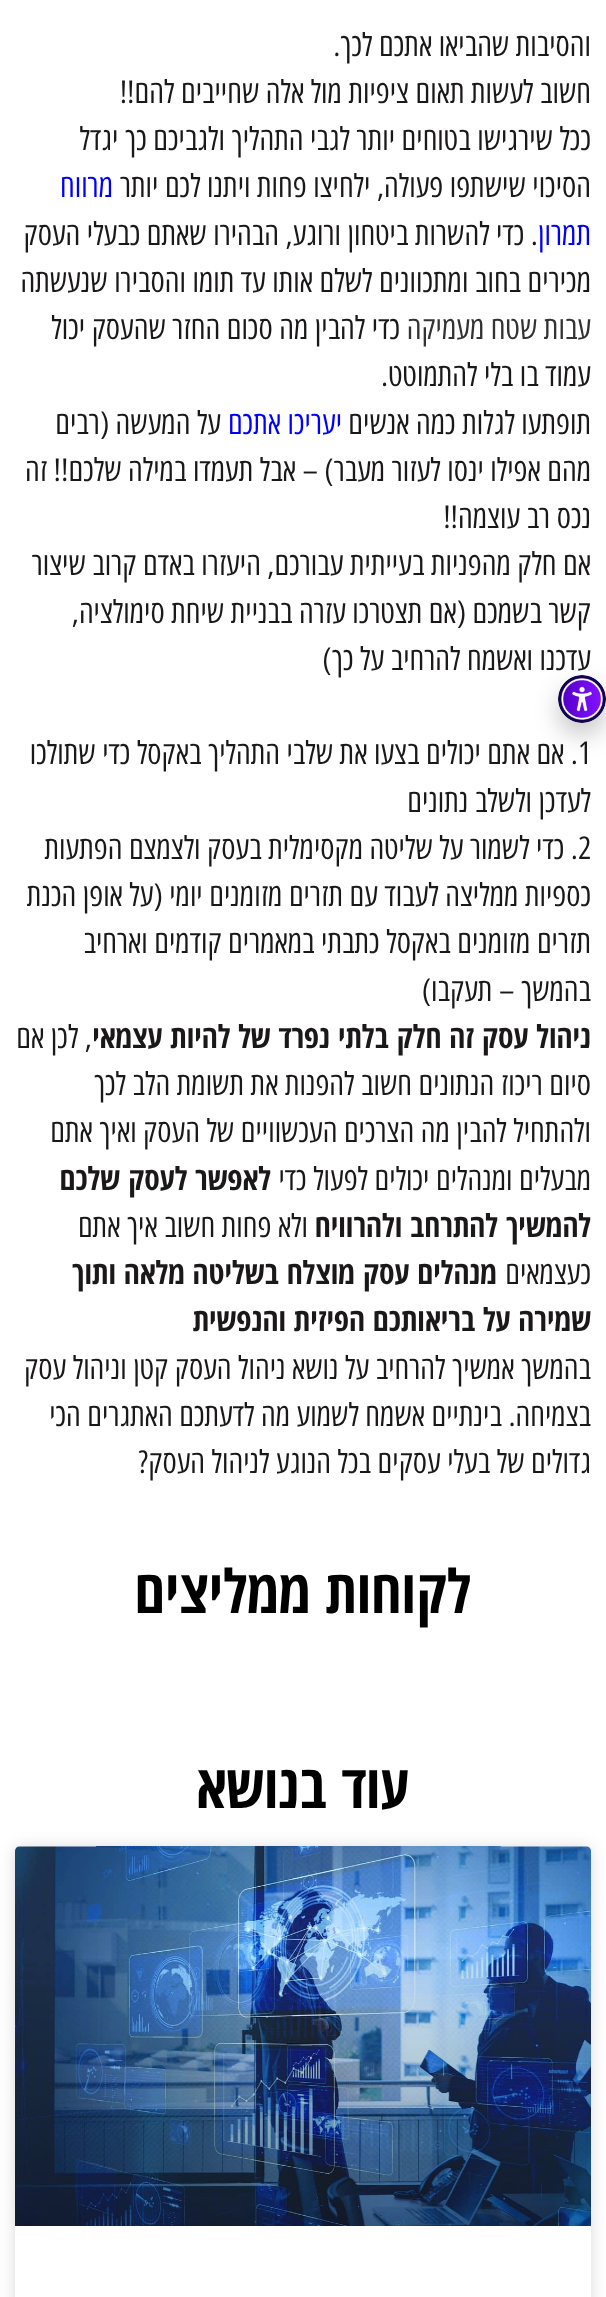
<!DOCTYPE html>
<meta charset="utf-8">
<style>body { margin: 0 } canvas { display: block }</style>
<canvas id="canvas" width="606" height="2297"></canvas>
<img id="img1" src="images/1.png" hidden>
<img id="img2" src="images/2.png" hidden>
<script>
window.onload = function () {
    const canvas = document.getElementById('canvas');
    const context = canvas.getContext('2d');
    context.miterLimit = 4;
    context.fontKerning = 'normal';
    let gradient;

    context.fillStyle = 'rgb(255, 255, 255)';
    context.fillRect(0, 0, 606, 2297);
    context.save();
    context.beginPath();
    context.moveTo(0, 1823);
    context.lineTo(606, 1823);
    context.lineTo(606, 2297);
    context.lineTo(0, 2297);
    context.closePath();
    context.moveTo(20, 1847);
    context.lineTo(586, 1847);
    context.bezierCurveTo(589, 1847, 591, 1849, 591, 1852);
    context.lineTo(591, 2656);
    context.bezierCurveTo(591, 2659, 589, 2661, 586, 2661);
    context.lineTo(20, 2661);
    context.bezierCurveTo(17, 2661, 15, 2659, 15, 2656);
    context.lineTo(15, 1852);
    context.bezierCurveTo(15, 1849, 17, 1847, 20, 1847);
    context.closePath();
    context.clip('evenodd');
    context.fillStyle = 'rgba(0, 0, 0, 0.15)';
    context.filter = 'blur(7.5px)';
    context.beginPath();
    context.roundRect(15, 1847, 576, 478, 5);
    context.fill();
    context.filter = 'none';
    context.restore();
    context.drawImage(document.getElementById('img1'), 15, 1846, 576, 380);
    gradient = context.createLinearGradient(303, 2226, 303, 1847);
    gradient.addColorStop(0, 'rgba(0, 0, 0, 0.35)');
    gradient.addColorStop(0.75, 'rgba(0, 0, 0, 0)');
    context.fillStyle = gradient;
    context.fillRect(15, 1959, 576, 267);
    context.fillStyle = 'rgba(0, 0, 0, 0.22)';
    context.filter = 'blur(12px)';
    context.beginPath();
    context.roundRect(558, 687, 48, 48, 24);
    context.fill();
    context.filter = 'none';
    context.direction = 'rtl';
    context.font = '31.5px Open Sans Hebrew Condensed';
    context.fillStyle = 'rgb(26, 24, 24)';
    context.fillText('והסיבות שהביאו אתכם לכך.', 591, 56);
    context.fillText('חשוב לעשות תאום ציפיות מול אלה שחייבים להם!!', 591, 103);
    context.fillText('ככל שירגישו בטוחים יותר לגבי התהליך ולגביכם כך יגדל', 591, 150);
    context.fillText('הסיכוי שישתפו פעולה, ילחיצו פחות ויתנו לכם יותר', 591, 197);
    context.fillStyle = 'rgb(0, 0, 255)';
    context.fillText('מרווח', 113, 197);
    context.fillText('תמרון', 591, 245);
    context.fillStyle = 'rgb(26, 24, 24)';
    context.fillText('. כדי להשרות ביטחון ורוגע, הבהירו שאתם כבעלי העסק', 538, 245);
    context.fillText('מכירים בחוב ומתכוונים לשלם אותו עד תומו והסבירו שנעשתה', 591, 292);
    context.fillStyle = 'rgb(51, 51, 51)';
    context.fillText('עבות שטח מעמיקה', 591, 339);
    context.fillStyle = 'rgb(26, 24, 24)';
    context.fillText('כדי להבין מה סכום החזר שהעסק יכול', 400, 339);
    context.fillText('עמוד בו בלי להתמוטט.', 591, 386);
    context.fillText('תופתעו לגלות כמה אנשים', 591, 434);
    context.fillStyle = 'rgb(0, 0, 255)';
    context.fillText('יעריכו אתכם', 342, 434);
    context.fillStyle = 'rgb(26, 24, 24)';
    context.fillText('על המעשה (רבים', 221, 434);
    context.fillText('מהם אפילו ינסו לעזור מעבר) – אבל תעמדו במילה שלכם!! זה', 591, 481);
    context.fillText('נכס רב עוצמה!!', 591, 528);
    context.fillText('אם חלק מהפניות בעייתית עבורכם, היעזרו באדם קרוב שיצור', 591, 575);
    context.fillText('קשר בשמכם (אם תצטרכו עזרה בבניית שיחת סימולציה,', 591, 623);
    context.fillText('עדכנו ואשמח להרחיב על כך)', 591, 670);
    context.direction = 'ltr';
    context.fillText('1', 578, 764);
    context.direction = 'rtl';
    context.fillText('. אם אתם יכולים בצעו את שלבי התהליך באקסל כדי שתולכו', 578, 764);
    context.fillText('לעדכן ולשלב נתונים', 591, 812);
    context.direction = 'ltr';
    context.fillText('2', 578, 859);
    context.direction = 'rtl';
    context.fillText('. כדי לשמור על שליטה מקסימלית בעסק ולצמצם הפתעות', 578, 859);
    context.fillText('כספיות ממליצה לעבוד עם תזרים מזומנים יומי (על אופן הכנת', 591, 906);
    context.fillText('תזרים מזומנים באקסל כתבתי במאמרים קודמים וארחיב', 591, 953);
    context.fillText('בהמשך – תעקבו)', 591, 1001);
    context.font = 'bold 31.5px Open Sans Hebrew Condensed';
    context.fillText('ניהול עסק זה חלק בלתי נפרד של להיות עצמאי', 591, 1048);
    context.font = '31.5px Open Sans Hebrew Condensed';
    context.fillText(', לכן אם', 92, 1048);
    context.fillText('סיום ריכוז הנתונים חשוב להפנות את תשומת הלב לכך', 591, 1095);
    context.fillText('ולהתחיל להבין מה הצרכים העכשוויים של העסק ואיך אתם', 591, 1142);
    context.fillText('מבעלים ומנהלים יכולים לפעול כדי', 591, 1190);
    context.font = 'bold 31.5px Open Sans Hebrew Condensed';
    context.fillText('לאפשר לעסק שלכם', 271, 1190);
    context.fillText('להמשיך להתרחב ולהרוויח', 591, 1237);
    context.font = '31.5px Open Sans Hebrew Condensed';
    context.fillText('ולא פחות חשוב איך אתם', 308, 1237);
    context.fillText('כעצמאים', 591, 1284);
    context.font = 'bold 31.5px Open Sans Hebrew Condensed';
    context.fillText('מנהלים עסק מוצלח בשליטה מלאה ותוך', 497, 1284);
    context.fillText('שמירה על בריאותכם הפיזית והנפשית', 591, 1331);
    context.font = '31.5px Open Sans Hebrew Condensed';
    context.fillText('בהמשך אמשיך להרחיב על נושא ניהול העסק קטן וניהול עסק', 591, 1379);
    context.fillText('בצמיחה. בינתיים אשמח לשמוע מה לדעתכם האתגרים הכי', 591, 1426);
    context.fillText('גדולים של בעלי עסקים בכל הנוגע לניהול העסק?', 591, 1473);
    context.font = 'bold 60px Open Sans Hebrew Condensed';
    context.fillStyle = 'rgb(0, 0, 0)';
    context.fillText('לקוחות ממליצים', 471, 1613);
    context.fillText('עוד בנושא', 409, 1808);
    context.fillStyle = 'rgb(255, 255, 255)';
    context.beginPath();
    context.arc(582, 699, 24, 0, 2 * Math.PI);
    context.fill();
    context.drawImage(document.getElementById('img2'), 558, 675, 48, 48);
};
</script>
